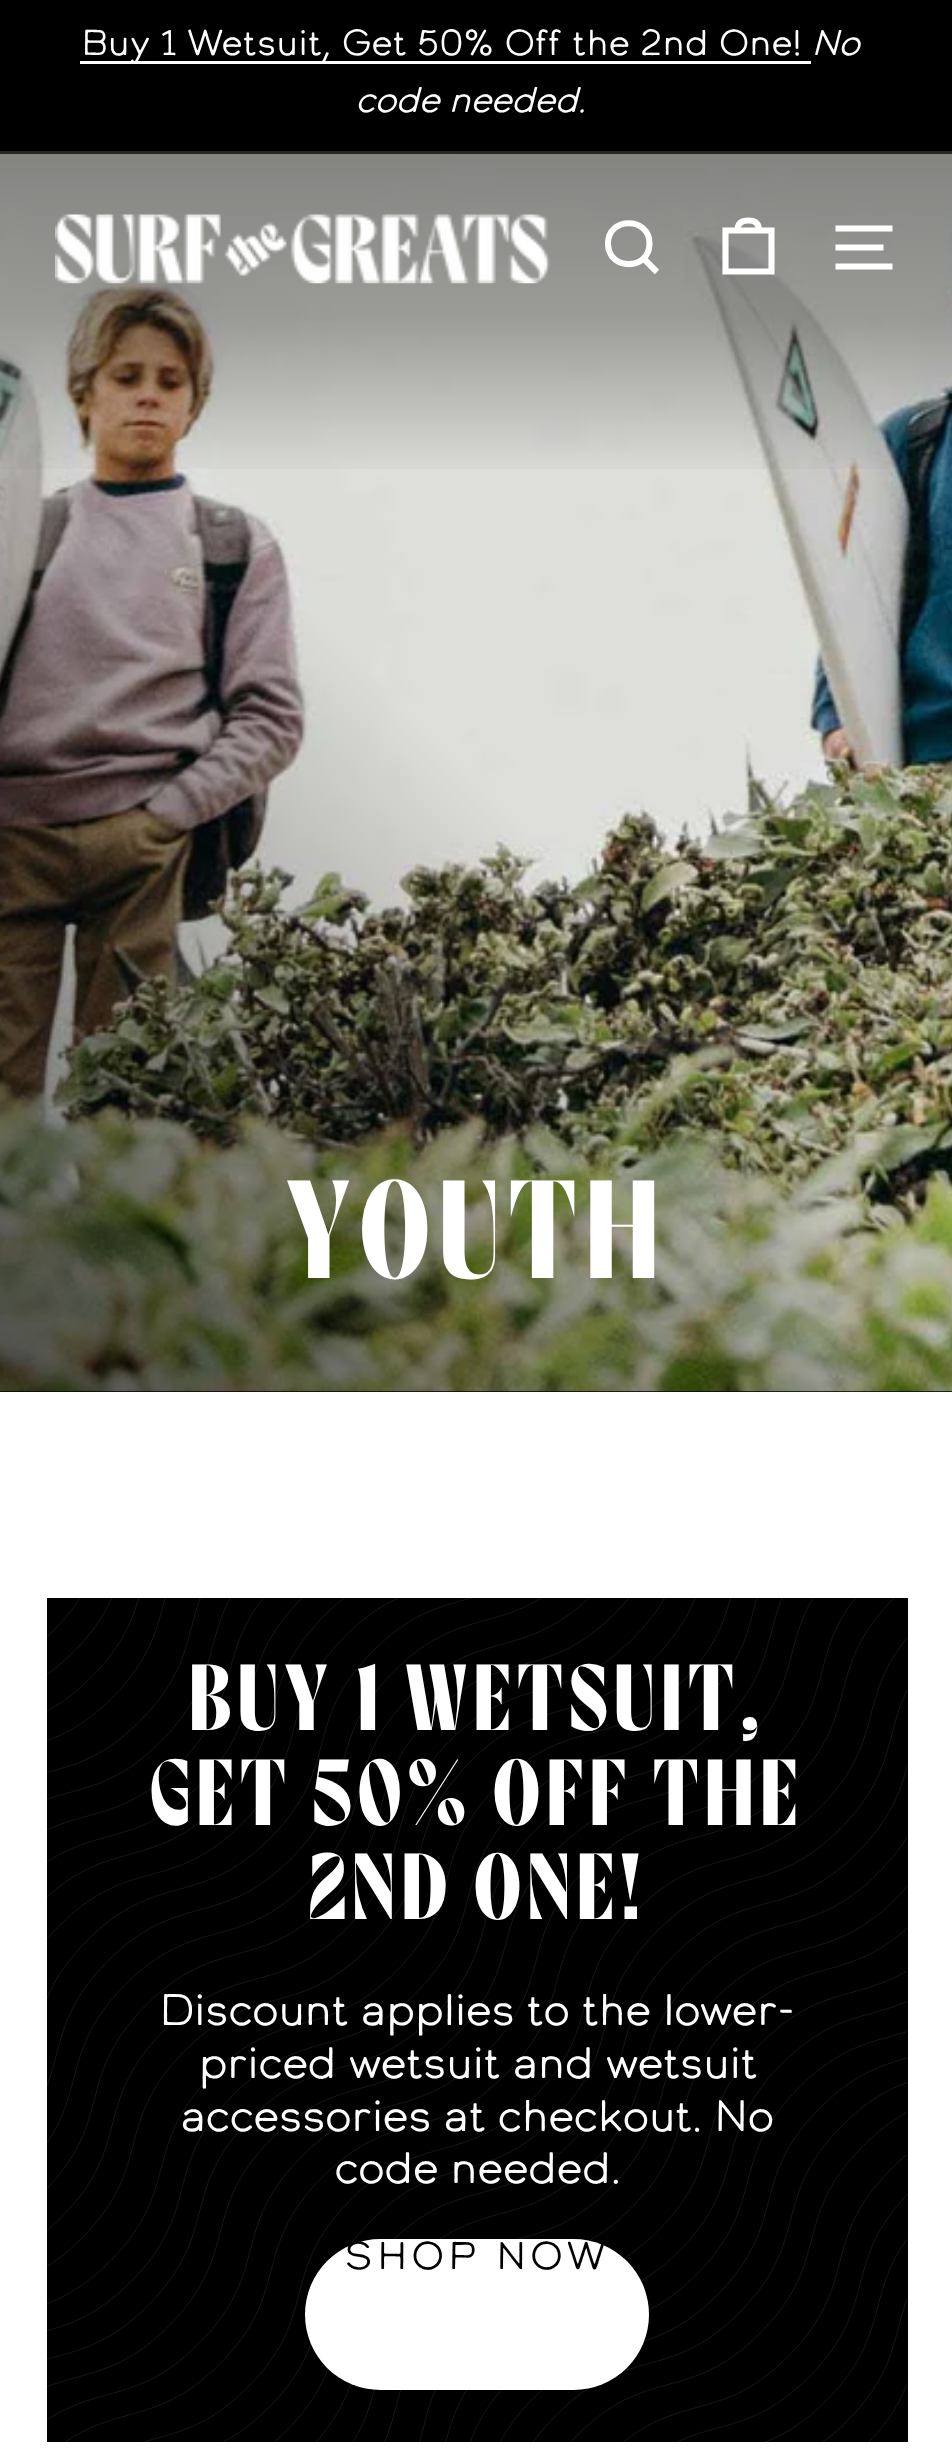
<!DOCTYPE html>
<meta charset="utf-8">
<style>body { margin: 0 } canvas { display: block }</style>
<canvas id="canvas" width="952" height="2454"></canvas>
<img id="img1" src="images/2.png" hidden>
<img id="img2" src="images/1.png" hidden>
<img id="img3" src="images/3.png" hidden>
<script>
window.onload = function () {
    const canvas = document.getElementById('canvas');
    const context = canvas.getContext('2d');
    context.miterLimit = 4;
    context.fontKerning = 'normal';
    let gradient;

    context.fillStyle = 'rgb(255, 255, 255)';
    context.fillRect(0, 0, 952, 2454);
    context.fillStyle = 'rgb(0, 0, 0)';
    context.fillRect(0, 0, 952, 151);
    context.fillStyle = 'rgb(255, 255, 255)';
    context.fillRect(80, 61, 731, 3);
    context.fillStyle = 'rgb(38, 38, 38)';
    context.fillRect(0, 151, 952, 3);
    context.fillStyle = 'rgb(0, 0, 0)';
    context.fillRect(0, 1391, 952, 1);
    context.drawImage(document.getElementById('img1'), 0, 154, 952, 1238);
    gradient = context.createLinearGradient(-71, 1321, 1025, 225);
    gradient.addColorStop(0, 'rgba(0, 0, 0, 0.6)');
    gradient.addColorStop(0.5, 'rgba(0, 0, 0, 0)');
    context.fillStyle = gradient;
    context.fillRect(0, 336, 952, 1056);
    gradient = context.createLinearGradient(477, 154, 477, 481);
    gradient.addColorStop(0, 'rgba(0, 0, 0, 0.4)');
    gradient.addColorStop(0.5, 'rgba(0, 0, 0, 0.3)');
    gradient.addColorStop(1, 'rgba(0, 0, 0, 0)');
    context.fillStyle = gradient;
    context.fillRect(0, 154, 952, 315);
    context.drawImage(document.getElementById('img2'), 55, 214, 495, 70);
    context.beginPath();
    context.moveTo(649.5, 243.5);
    context.bezierCurveTo(649.5, 271, 608, 271, 608, 243.5);
    context.bezierCurveTo(608, 216.5, 649.5, 216.5, 649.5, 243.5);
    context.moveTo(657, 272);
    context.lineTo(643.5, 258.5);
    context.strokeStyle = 'rgb(255, 255, 255)';
    context.lineWidth = 6.1;
    context.stroke();
    context.beginPath();
    context.moveTo(737.5, 230.5);
    context.bezierCurveTo(737.5, 222.5, 742.5, 220.5, 748.5, 220.5);
    context.bezierCurveTo(754.5, 220.5, 759, 222.5, 759, 230.5);
    context.moveTo(725.5, 230.5);
    context.lineTo(771.5, 230.5);
    context.lineTo(771.5, 271.5);
    context.lineTo(725.5, 271.5);
    context.closePath();
    context.stroke();
    context.beginPath();
    context.moveTo(835.5, 228.5);
    context.lineTo(892.5, 228.5);
    context.moveTo(835.5, 247.5);
    context.lineTo(883.5, 247.5);
    context.moveTo(835.5, 266.5);
    context.lineTo(892.5, 266.5);
    context.stroke();
    context.fillStyle = 'rgb(0, 0, 0)';
    context.fillRect(47, 1598, 861, 844);
    context.drawImage(document.getElementById('img3'), 47, 1598, 860, 844);
    context.fillStyle = 'rgb(255, 255, 255)';
    context.beginPath();
    context.roundRect(305, 2239, 344, 151, 75.5);
    context.fill();
    context.letterSpacing = '-0.35px';
    context.font = '35.75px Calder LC';
    context.fillText('Buy 1 Wetsuit, Get 50% Off the 2nd One!', 81, 55);
    context.letterSpacing = '-1.1px';
    context.font = 'italic 35.75px Calder LC';
    context.fillText('No', 811, 55);
    context.fillText('code needed.', 355, 112);
    context.letterSpacing = '9.5px';
    context.font = '128.5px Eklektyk';
    context.fillText('YOUTH', 286, 1278);
    context.letterSpacing = '6.5px';
    context.font = '86.25px Eklektyk';
    context.fillText('BUY 1 WETSUIT,', 189, 1730);
    context.fillText('GET 50% OFF THE', 150, 1825);
    context.fillText('2ND ONE!', 308, 1919);
    context.letterSpacing = '-1.1px';
    context.font = '44px Calder LC';
    context.fillText('Discount applies to the lower-', 159, 2025);
    context.fillText('priced wetsuit and wetsuit', 198, 2078);
    context.fillText('accessories at checkout. No', 180, 2131);
    context.fillText('code needed.', 334, 2183);
    context.letterSpacing = '3.75px';
    context.font = '38.5px Calder LC';
    context.fillStyle = 'rgb(0, 0, 0)';
    context.fillText('SHOP NOW', 344, 2269);
};
</script>
